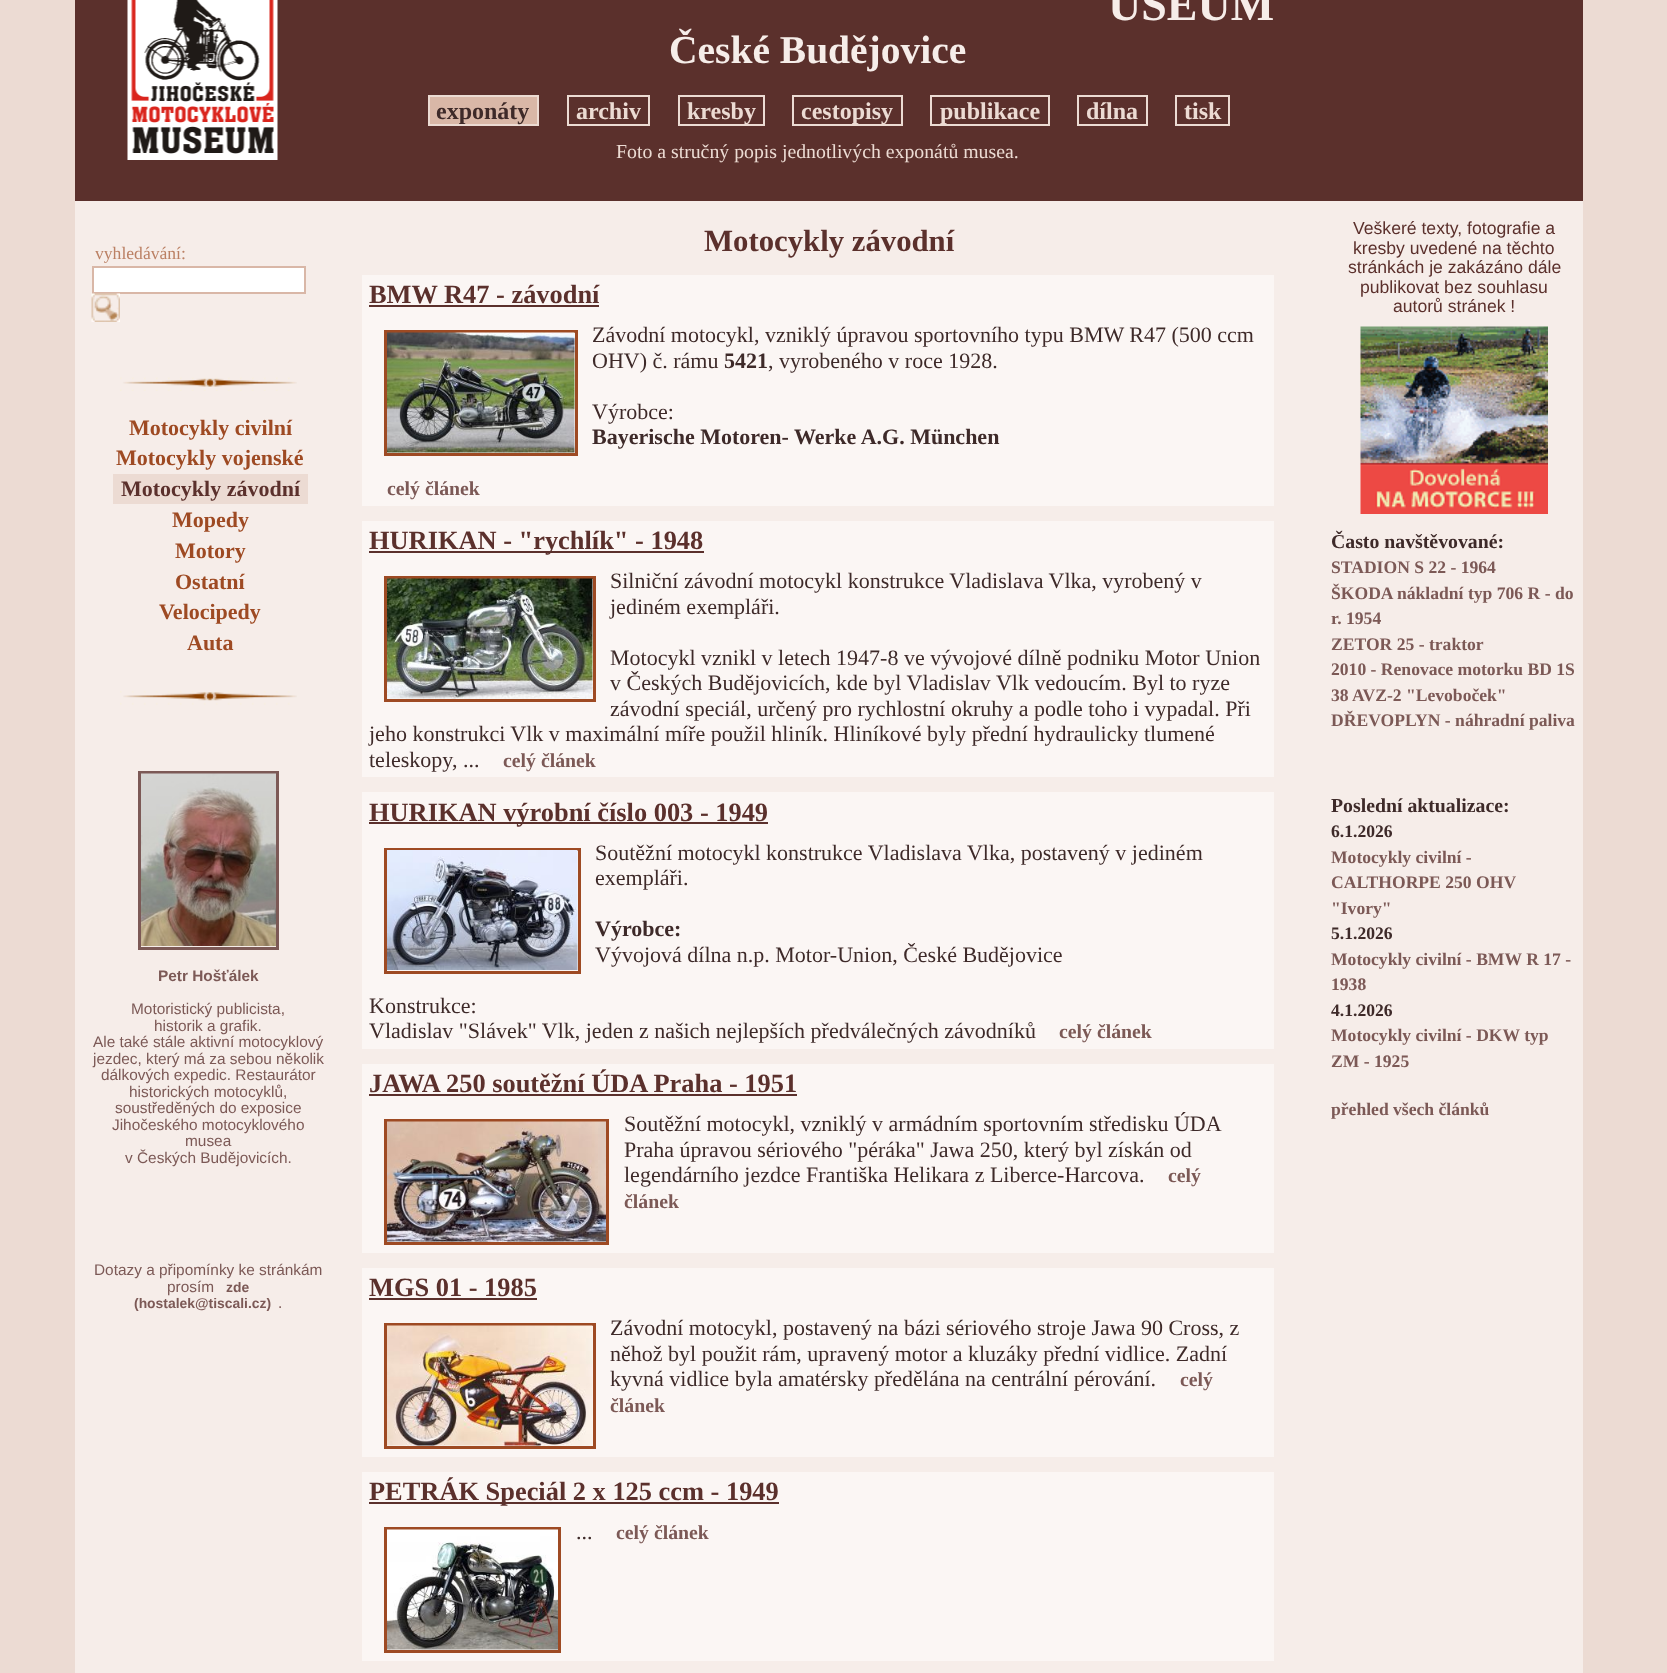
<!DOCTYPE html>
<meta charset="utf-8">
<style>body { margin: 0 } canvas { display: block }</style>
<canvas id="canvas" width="1667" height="1673"></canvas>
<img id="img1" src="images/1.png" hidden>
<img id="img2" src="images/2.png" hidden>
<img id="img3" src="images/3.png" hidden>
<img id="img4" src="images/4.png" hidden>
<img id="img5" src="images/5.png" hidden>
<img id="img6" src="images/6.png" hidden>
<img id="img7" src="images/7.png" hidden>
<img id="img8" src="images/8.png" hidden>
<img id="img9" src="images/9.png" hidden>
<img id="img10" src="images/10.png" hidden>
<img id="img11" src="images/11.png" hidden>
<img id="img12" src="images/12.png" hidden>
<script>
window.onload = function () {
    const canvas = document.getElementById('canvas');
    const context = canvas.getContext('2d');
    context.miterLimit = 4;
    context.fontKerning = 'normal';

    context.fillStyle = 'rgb(236, 219, 211)';
    context.fillRect(0, 0, 1667, 1673);
    context.fillStyle = 'rgb(246, 237, 233)';
    context.fillRect(75, 201, 1508, 1472);
    context.fillStyle = 'rgb(91, 48, 44)';
    context.fillRect(75, 0, 257, 201);
    context.drawImage(document.getElementById('img1'), 127, 0, 151, 160);
    context.fillRect(332, 0, 994, 201);
    context.fillRect(1326, 0, 257, 201);
    context.fillStyle = 'rgb(217, 183, 167)';
    context.beginPath();
    context.rect(429, 96, 109, 29);
    context.fill();
    context.strokeStyle = 'rgb(236, 219, 211)';
    context.lineWidth = 2;
    context.stroke();
    context.strokeRect(568, 96, 81, 29);
    context.strokeRect(679, 96, 85, 29);
    context.strokeRect(793, 96, 109, 29);
    context.strokeRect(931, 96, 118, 29);
    context.strokeRect(1078, 96, 69, 29);
    context.strokeRect(1176, 96, 53, 29);
    context.fillStyle = 'rgb(255, 255, 255)';
    context.beginPath();
    context.rect(93, 267, 212, 26);
    context.fill();
    context.strokeStyle = 'rgb(217, 183, 167)';
    context.stroke();
    context.drawImage(document.getElementById('img2'), 91, 293, 29, 29);
    context.drawImage(document.getElementById('img3'), 120, 377, 177, 14);
    context.fillStyle = 'rgb(236, 219, 211)';
    context.fillRect(113, 474, 195, 30);
    context.drawImage(document.getElementById('img4'), 120, 691, 177, 14);
    context.strokeStyle = 'rgb(124, 89, 86)';
    context.lineWidth = 3;
    context.strokeRect(139.5, 772.5, 138, 176);
    context.drawImage(document.getElementById('img5'), 141, 773, 135, 173);
    context.drawImage(document.getElementById('img6'), 1360, 326, 188, 188);
    context.fillStyle = 'rgb(251, 246, 244)';
    context.fillRect(362, 275, 912, 231);
    context.fillStyle = 'rgb(91, 48, 44)';
    context.fillRect(369, 305, 230, 2);
    context.strokeStyle = 'rgb(158, 74, 35)';
    context.strokeRect(385.5, 331.5, 191, 123);
    context.drawImage(document.getElementById('img7'), 387, 332, 188, 121);
    context.fillStyle = 'rgb(251, 246, 244)';
    context.fillRect(362, 521, 912, 256);
    context.fillStyle = 'rgb(91, 48, 44)';
    context.fillRect(369, 551, 335, 2);
    context.strokeRect(385.5, 577.5, 209, 123);
    context.drawImage(document.getElementById('img8'), 387, 578, 206, 121);
    context.fillStyle = 'rgb(251, 246, 244)';
    context.fillRect(362, 792, 912, 257);
    context.fillStyle = 'rgb(91, 48, 44)';
    context.fillRect(369, 822, 399, 2);
    context.strokeRect(385.5, 849.5, 194, 123);
    context.drawImage(document.getElementById('img9'), 387, 850, 191, 120);
    context.fillStyle = 'rgb(251, 246, 244)';
    context.fillRect(362, 1064, 912, 189);
    context.fillStyle = 'rgb(91, 48, 44)';
    context.fillRect(369, 1094, 428, 2);
    context.strokeRect(385.5, 1120.5, 222, 123);
    context.drawImage(document.getElementById('img10'), 387, 1121, 219, 121);
    context.fillStyle = 'rgb(251, 246, 244)';
    context.fillRect(362, 1268, 912, 189);
    context.fillStyle = 'rgb(91, 48, 44)';
    context.fillRect(369, 1298, 168, 2);
    context.strokeRect(385.5, 1324.5, 209, 123);
    context.drawImage(document.getElementById('img11'), 387, 1325, 206, 121);
    context.fillStyle = 'rgb(251, 246, 244)';
    context.fillRect(362, 1472, 912, 189);
    context.fillStyle = 'rgb(91, 48, 44)';
    context.fillRect(369, 1502, 410, 2);
    context.strokeRect(385.5, 1528.5, 174, 123);
    context.drawImage(document.getElementById('img12'), 387, 1529, 171, 121);
    context.font = 'bold 46px Liberation Serif';
    context.fillStyle = 'rgb(246, 237, 233)';
    context.fillText('USEUM', 1108, 20);
    context.font = 'bold 39.5px Liberation Serif';
    context.fillText('České Budějovice', 669, 63);
    context.font = 'bold 24px Liberation Serif';
    context.fillStyle = 'rgb(62, 42, 41)';
    context.fillText('exponáty', 436, 119);
    context.fillStyle = 'rgb(236, 219, 211)';
    context.fillText('archiv', 576, 119);
    context.fillText('kresby', 687, 119);
    context.fillText('cestopisy', 801, 119);
    context.fillText('publikace', 940, 119);
    context.fillText('dílna', 1086, 119);
    context.fillText('tisk', 1184, 119);
    context.font = '19.8px Liberation Serif';
    context.fillText('Foto a stručný popis jednotlivých exponátů musea.', 616, 158);
    context.font = '17.6px Liberation Serif';
    context.fillStyle = 'rgb(187, 128, 100)';
    context.fillText('vyhledávání:', 95, 259);
    context.font = 'bold 22px Liberation Serif';
    context.fillStyle = 'rgb(158, 74, 35)';
    context.fillText('Motocykly civilní', 129, 435);
    context.fillText('Motocykly vojenské', 116, 465);
    context.fillStyle = 'rgb(91, 48, 44)';
    context.fillText('Motocykly závodní', 121, 496);
    context.fillStyle = 'rgb(158, 74, 35)';
    context.fillText('Mopedy', 172, 527);
    context.fillText('Motory', 175, 558);
    context.fillText('Ostatní', 175, 589);
    context.fillText('Velocipedy', 159, 619);
    context.fillText('Auta', 187, 650);
    context.font = 'bold 15.4px Liberation Sans';
    context.fillStyle = 'rgb(124, 89, 86)';
    context.fillText('Petr Hošťálek', 158, 981);
    context.font = '15.4px Liberation Sans';
    context.fillText('Motoristický publicista,', 131, 1014);
    context.fillText('historik a grafik.', 154, 1031);
    context.fillText('Ale také stále aktivní motocyklový', 93, 1047);
    context.fillText('jezdec, který má za sebou několik', 93, 1064);
    context.fillText('dálkových expedic. Restaurátor', 101, 1080);
    context.fillText('historických motocyklů,', 129, 1097);
    context.fillText('soustředěných do exposice', 115, 1113);
    context.fillText('Jihočeského motocyklového', 112, 1130);
    context.fillText('musea', 185, 1146);
    context.fillText('v Českých Budějovicích.', 125, 1163);
    context.fillText('Dotazy a připomínky ke stránkám', 94, 1275);
    context.fillText('prosím', 167, 1292);
    context.font = 'bold 13.9px Liberation Sans';
    context.fillText('zde', 226, 1292);
    context.fillText('(hostalek@tiscali.cz)', 134, 1308);
    context.font = '15.4px Liberation Sans';
    context.fillText('.', 278, 1308);
    context.font = '17.6px Liberation Sans';
    context.fillStyle = 'rgb(91, 48, 44)';
    context.fillText('Veškeré texty, fotografie a', 1353, 234);
    context.fillText('kresby uvedené na těchto', 1353, 254);
    context.fillText('stránkách je zakázáno dále', 1348, 273);
    context.fillText('publikovat bez souhlasu', 1360, 293);
    context.fillText('autorů stránek !', 1393, 312);
    context.font = 'bold 19.8px Liberation Serif';
    context.fillStyle = 'rgb(62, 42, 41)';
    context.fillText('Často navštěvované:', 1331, 548);
    context.font = 'bold 17.6px Liberation Serif';
    context.fillStyle = 'rgb(124, 89, 86)';
    context.fillText('STADION S 22 - 1964', 1331, 573);
    context.fillText('ŠKODA nákladní typ 706 R - do', 1331, 599);
    context.fillText('r. 1954', 1331, 624);
    context.fillText('ZETOR 25 - traktor', 1331, 650);
    context.fillText('2010 - Renovace motorku BD 1S', 1331, 675);
    context.fillText('38 AVZ-2 "Levoboček"', 1331, 701);
    context.fillText('DŘEVOPLYN - náhradní paliva', 1331, 726);
    context.font = 'bold 19.8px Liberation Serif';
    context.fillStyle = 'rgb(62, 42, 41)';
    context.fillText('Poslední aktualizace:', 1331, 812);
    context.font = 'bold 17.6px Liberation Serif';
    context.fillText('6.1.2026', 1331, 837);
    context.fillStyle = 'rgb(124, 89, 86)';
    context.fillText('Motocykly civilní -', 1331, 863);
    context.fillText('CALTHORPE 250 OHV', 1331, 888);
    context.fillText('"Ivory"', 1331, 914);
    context.fillStyle = 'rgb(62, 42, 41)';
    context.fillText('5.1.2026', 1331, 939);
    context.fillStyle = 'rgb(124, 89, 86)';
    context.fillText('Motocykly civilní - BMW R 17 -', 1331, 965);
    context.fillText('1938', 1331, 990);
    context.fillStyle = 'rgb(62, 42, 41)';
    context.fillText('4.1.2026', 1331, 1016);
    context.fillStyle = 'rgb(124, 89, 86)';
    context.fillText('Motocykly civilní - DKW typ', 1331, 1041);
    context.fillText('ZM - 1925', 1331, 1067);
    context.fillText('přehled všech článků', 1331, 1115);
    context.font = 'bold 30.75px Liberation Serif';
    context.fillStyle = 'rgb(91, 48, 44)';
    context.fillText('Motocykly závodní', 704, 251);
    context.font = 'bold 26.4px Liberation Serif';
    context.fillText('BMW R47 - závodní', 369, 303);
    context.font = '22px Liberation Serif';
    context.fillStyle = 'rgb(62, 42, 41)';
    context.fillText('Závodní motocykl, vzniklý úpravou sportovního typu BMW R47 (500 ccm', 592, 342);
    context.fillText('OHV) č. rámu', 592, 368);
    context.font = 'bold 22px Liberation Serif';
    context.fillText('5421', 724, 368);
    context.font = '22px Liberation Serif';
    context.fillText(', vyrobeného v roce 1928.', 768, 368);
    context.fillText('Výrobce:', 592, 419);
    context.font = 'bold 22px Liberation Serif';
    context.fillText('Bayerische Motoren- Werke A.G. München', 592, 444);
    context.font = 'bold 19.8px Liberation Serif';
    context.fillStyle = 'rgb(124, 89, 86)';
    context.fillText('celý článek', 387, 495);
    context.font = 'bold 26.4px Liberation Serif';
    context.fillStyle = 'rgb(91, 48, 44)';
    context.fillText('HURIKAN - "rychlík" - 1948', 369, 549);
    context.font = '22px Liberation Serif';
    context.fillStyle = 'rgb(62, 42, 41)';
    context.fillText('Silniční závodní motocykl konstrukce Vladislava Vlka, vyrobený v', 610, 588);
    context.fillText('jediném exempláři.', 610, 614);
    context.fillText('Motocykl vznikl v letech 1947-8 ve vývojové dílně podniku Motor Union', 610, 665);
    context.fillText('v Českých Budějovicích, kde byl Vladislav Vlk vedoucím. Byl to ryze', 610, 690);
    context.fillText('závodní speciál, určený pro rychlostní okruhy a podle toho i vypadal. Při', 610, 716);
    context.fillText('jeho konstrukci Vlk v maximální míře použil hliník. Hliníkové byly přední hydraulicky tlumené', 369, 741);
    context.fillText('teleskopy, ...', 369, 767);
    context.font = 'bold 19.8px Liberation Serif';
    context.fillStyle = 'rgb(124, 89, 86)';
    context.fillText('celý článek', 503, 767);
    context.font = 'bold 26.4px Liberation Serif';
    context.fillStyle = 'rgb(91, 48, 44)';
    context.fillText('HURIKAN výrobní číslo 003 - 1949', 369, 821);
    context.font = '22px Liberation Serif';
    context.fillStyle = 'rgb(62, 42, 41)';
    context.fillText('Soutěžní motocykl konstrukce Vladislava Vlka, postavený v jediném', 595, 860);
    context.fillText('exempláři.', 595, 885);
    context.font = 'bold 22px Liberation Serif';
    context.fillText('Výrobce:', 595, 936);
    context.font = '22px Liberation Serif';
    context.fillText('Vývojová dílna n.p. Motor-Union, České Budějovice', 595, 962);
    context.fillText('Konstrukce:', 369, 1013);
    context.fillText('Vladislav "Slávek" Vlk, jeden z našich nejlepších předválečných závodníků', 369, 1038);
    context.font = 'bold 19.8px Liberation Serif';
    context.fillStyle = 'rgb(124, 89, 86)';
    context.fillText('celý článek', 1059, 1038);
    context.font = 'bold 26.4px Liberation Serif';
    context.fillStyle = 'rgb(91, 48, 44)';
    context.fillText('JAWA 250 soutěžní ÚDA Praha - 1951', 369, 1092);
    context.font = '22px Liberation Serif';
    context.fillStyle = 'rgb(62, 42, 41)';
    context.fillText('Soutěžní motocykl, vzniklý v armádním sportovním středisku ÚDA', 624, 1131);
    context.fillText('Praha úpravou sériového "péráka" Jawa 250, který byl získán od', 624, 1157);
    context.fillText('legendárního jezdce Františka Helikara z Liberce-Harcova.', 624, 1182);
    context.font = 'bold 19.8px Liberation Serif';
    context.fillStyle = 'rgb(124, 89, 86)';
    context.fillText('celý', 1168, 1182);
    context.fillText('článek', 624, 1208);
    context.font = 'bold 26.4px Liberation Serif';
    context.fillStyle = 'rgb(91, 48, 44)';
    context.fillText('MGS 01 - 1985', 369, 1296);
    context.font = '22px Liberation Serif';
    context.fillStyle = 'rgb(62, 42, 41)';
    context.fillText('Závodní motocykl, postavený na bázi sériového stroje Jawa 90 Cross, z', 610, 1335);
    context.fillText('něhož byl použit rám, upravený motor a kluzáky přední vidlice. Zadní', 610, 1361);
    context.fillText('kyvná vidlice byla amatérsky předělána na centrální pérování.', 610, 1386);
    context.font = 'bold 19.8px Liberation Serif';
    context.fillStyle = 'rgb(124, 89, 86)';
    context.fillText('celý', 1180, 1386);
    context.fillText('článek', 610, 1412);
    context.font = 'bold 26.4px Liberation Serif';
    context.fillStyle = 'rgb(91, 48, 44)';
    context.fillText('PETRÁK Speciál 2 x 125 ccm - 1949', 369, 1500);
    context.font = '22px Liberation Serif';
    context.fillStyle = 'rgb(62, 42, 41)';
    context.fillText('...', 576, 1539);
    context.font = 'bold 19.8px Liberation Serif';
    context.fillStyle = 'rgb(124, 89, 86)';
    context.fillText('celý článek', 616, 1539);
};
</script>
